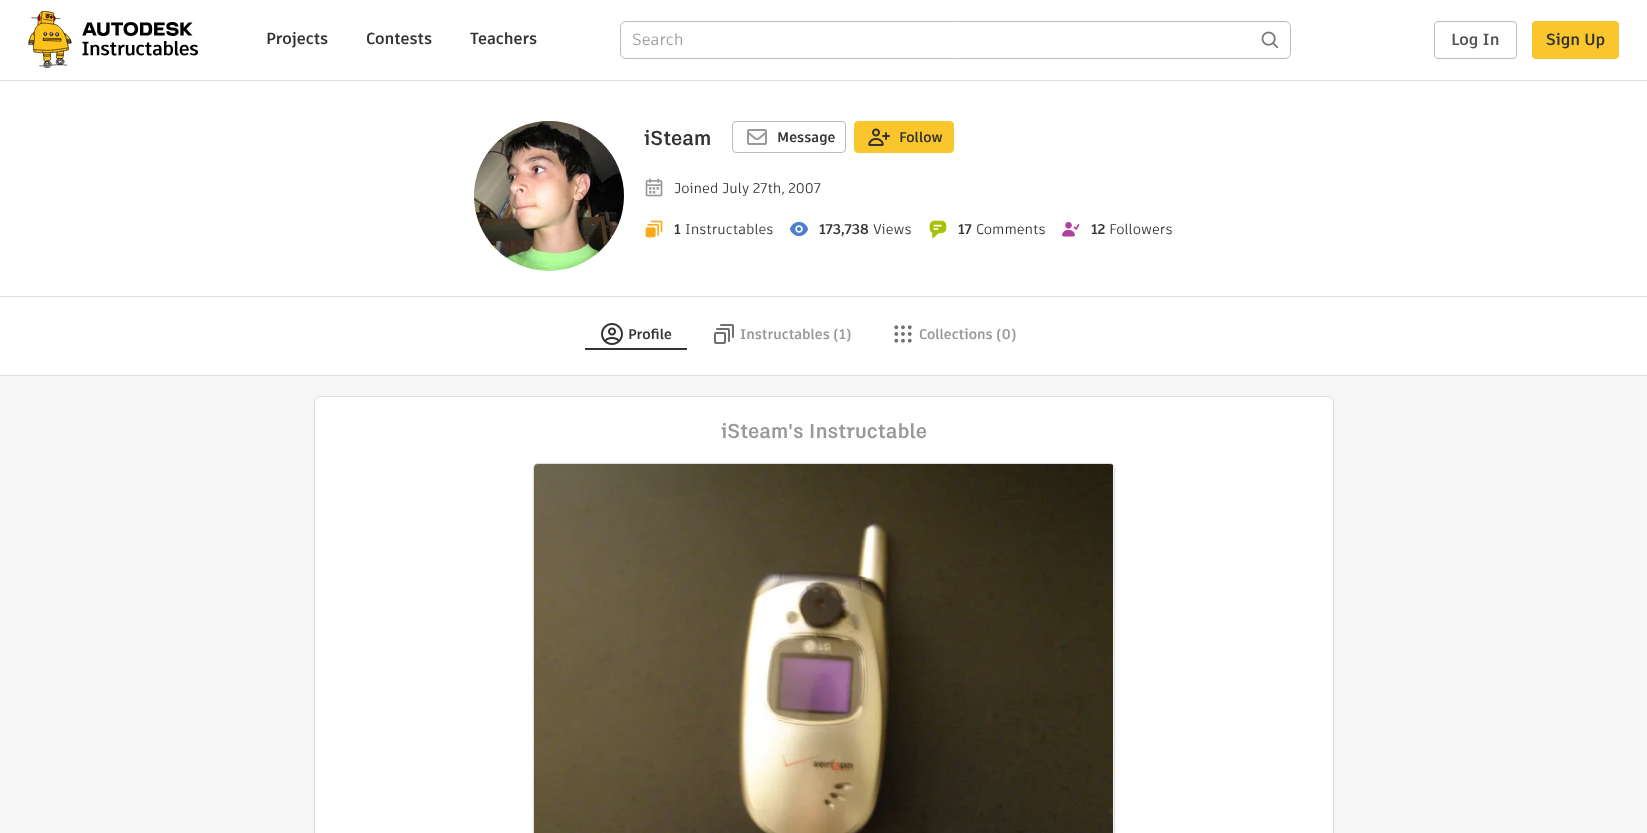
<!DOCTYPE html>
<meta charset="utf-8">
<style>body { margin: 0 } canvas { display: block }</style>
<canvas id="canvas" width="1647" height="833"></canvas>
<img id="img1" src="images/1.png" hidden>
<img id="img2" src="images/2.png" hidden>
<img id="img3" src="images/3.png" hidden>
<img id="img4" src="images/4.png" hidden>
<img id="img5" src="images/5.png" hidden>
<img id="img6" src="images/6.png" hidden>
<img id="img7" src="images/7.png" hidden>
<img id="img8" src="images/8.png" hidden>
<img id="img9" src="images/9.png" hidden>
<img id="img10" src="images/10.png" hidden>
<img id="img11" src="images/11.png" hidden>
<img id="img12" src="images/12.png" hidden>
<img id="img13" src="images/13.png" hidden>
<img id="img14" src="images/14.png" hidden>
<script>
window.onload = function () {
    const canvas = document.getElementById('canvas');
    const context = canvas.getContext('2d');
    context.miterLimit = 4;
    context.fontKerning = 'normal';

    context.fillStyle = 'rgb(255, 255, 255)';
    context.fillRect(0, 0, 1647, 833);
    context.fillStyle = 'rgb(221, 221, 221)';
    context.fillRect(0, 80, 1647, 1);
    context.drawImage(document.getElementById('img1'), 28, 11, 170, 57);
    context.beginPath();
    context.roundRect(620.5, 21.5, 670, 37, 5.5);
    context.strokeStyle = 'rgb(187, 187, 187)';
    context.stroke();
    context.drawImage(document.getElementById('img2'), 1261, 31, 18, 18);
    context.beginPath();
    context.roundRect(1434.5, 21.5, 82, 37, 3.5);
    context.stroke();
    context.fillStyle = 'rgb(250, 198, 45)';
    context.beginPath();
    context.roundRect(1533, 22, 85, 36, 3);
    context.fill();
    context.strokeStyle = 'rgb(250, 198, 45)';
    context.lineWidth = 2;
    context.stroke();
    context.fillStyle = 'rgb(246, 246, 246)';
    context.fillRect(0, 376, 1647, 457);
    context.fillStyle = 'rgb(221, 221, 221)';
    context.fillRect(0, 296, 1647, 1);
    context.drawImage(document.getElementById('img3'), 474, 121, 150, 150);
    context.beginPath();
    context.roundRect(732.5, 121.5, 113, 31, 3.5);
    context.strokeStyle = 'rgb(187, 187, 187)';
    context.lineWidth = 1;
    context.stroke();
    context.drawImage(document.getElementById('img4'), 747, 129, 20, 16);
    context.fillStyle = 'rgb(250, 198, 45)';
    context.beginPath();
    context.roundRect(854.5, 121.5, 99, 31, 3.5);
    context.fill();
    context.strokeStyle = 'rgb(250, 198, 45)';
    context.stroke();
    context.drawImage(document.getElementById('img5'), 868, 128, 22, 18);
    context.drawImage(document.getElementById('img6'), 645, 178, 18, 19);
    context.drawImage(document.getElementById('img7'), 645, 220, 18, 18);
    context.drawImage(document.getElementById('img8'), 789, 221, 20, 16);
    context.drawImage(document.getElementById('img9'), 929, 220, 18, 18);
    context.drawImage(document.getElementById('img10'), 1062, 221, 18, 16);
    context.fillStyle = 'rgb(221, 221, 221)';
    context.fillRect(0, 375, 1647, 1);
    context.fillStyle = 'rgb(51, 51, 51)';
    context.fillRect(585, 348, 102, 2);
    context.drawImage(document.getElementById('img11'), 601, 323, 22, 22);
    context.drawImage(document.getElementById('img12'), 714, 324, 20, 20);
    context.drawImage(document.getElementById('img13'), 894, 325, 18, 18);
    context.fillStyle = 'rgb(255, 255, 255)';
    context.beginPath();
    context.roundRect(314.5, 396.5, 1019, 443, 5.5);
    context.fill();
    context.strokeStyle = 'rgb(221, 221, 221)';
    context.stroke();
    context.fillStyle = 'rgba(0, 0, 0, 0.06)';
    context.filter = 'blur(1.5px)';
    context.beginPath();
    context.roundRect(533, 464, 582, 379, 5);
    context.fill();
    context.filter = 'none';
    context.beginPath();
    context.roundRect(533.5, 463.5, 581, 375, 4.5);
    context.stroke();
    context.drawImage(document.getElementById('img14'), 534, 464, 579, 369);
    context.font = 'bold 16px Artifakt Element';
    context.fillStyle = 'rgb(51, 51, 51)';
    context.fillText('Projects', 266, 44);
    context.fillText('Contests', 366, 44);
    context.fillText('Teachers', 470, 44);
    context.font = '16px Artifakt Element';
    context.fillStyle = 'rgb(153, 153, 153)';
    context.fillText('Search', 632, 45);
    context.font = 'bold 16px Artifakt Element';
    context.fillStyle = 'rgb(85, 85, 85)';
    context.fillText('Log In', 1451, 45);
    context.fillStyle = 'rgb(51, 51, 51)';
    context.fillText('Sign Up', 1546, 45);
    context.font = 'bold 20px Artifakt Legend';
    context.fillText('iSteam', 644, 145);
    context.font = 'bold 14px Artifakt Element';
    context.fillText('Message', 777, 142);
    context.fillText('Follow', 899, 142);
    context.font = '14px Artifakt Element';
    context.fillText('Joined July 27th, 2007', 674, 193);
    context.font = 'bold 14px Artifakt Element';
    context.fillText('1', 674, 234);
    context.font = '14px Artifakt Element';
    context.fillText('Instructables', 685, 234);
    context.font = 'bold 14px Artifakt Element';
    context.fillText('173,738', 819, 234);
    context.font = '14px Artifakt Element';
    context.fillText('Views', 873, 234);
    context.font = 'bold 14px Artifakt Element';
    context.fillText('17', 958, 234);
    context.font = '14px Artifakt Element';
    context.fillText('Comments', 976, 234);
    context.font = 'bold 14px Artifakt Element';
    context.fillText('12', 1091, 234);
    context.font = '14px Artifakt Element';
    context.fillText('Followers', 1109, 234);
    context.font = 'bold 14px Artifakt Element';
    context.fillText('Profile', 628, 339);
    context.fillStyle = 'rgb(153, 153, 153)';
    context.fillText('Instructables (1)', 740, 339);
    context.fillText('Collections (0)', 919, 339);
    context.font = 'bold 20px Artifakt Legend';
    context.fillText('iSteam\'s Instructable', 721, 438);
};
</script>
